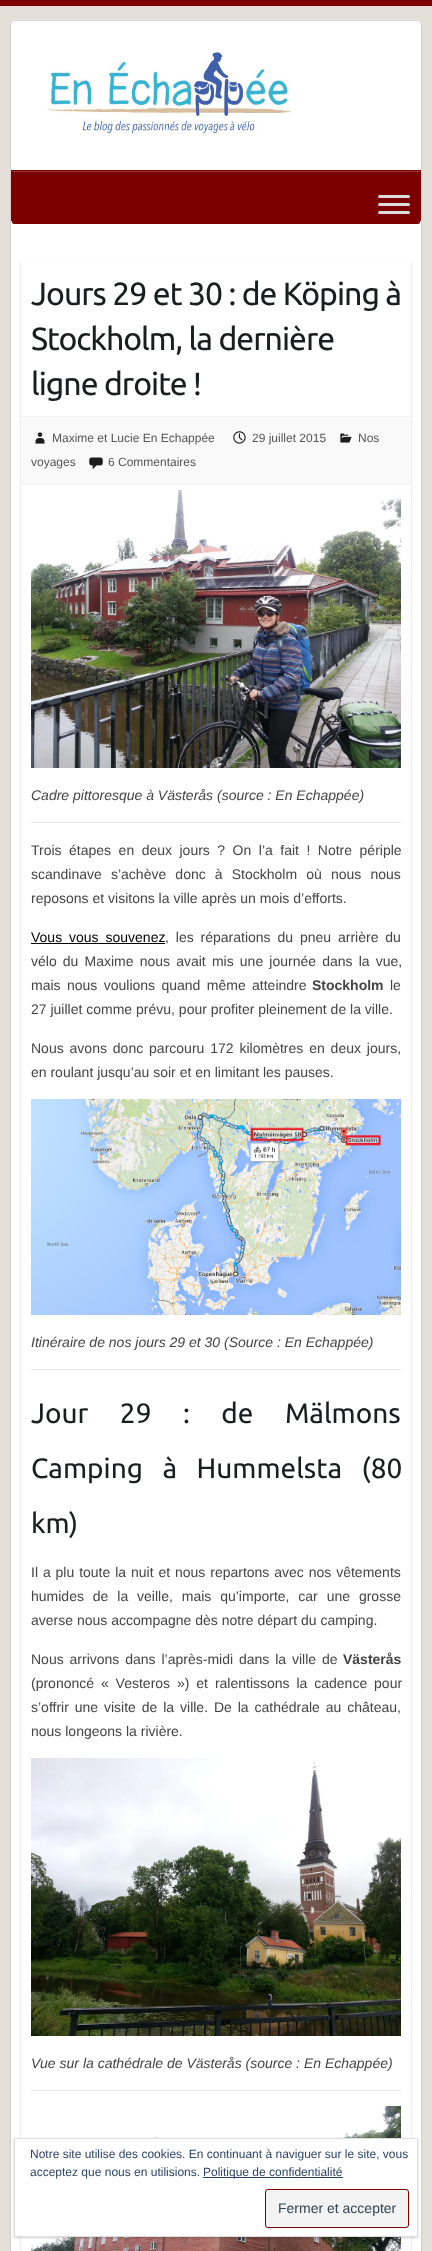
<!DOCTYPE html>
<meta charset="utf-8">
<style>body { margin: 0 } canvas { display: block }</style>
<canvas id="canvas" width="432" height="2251"></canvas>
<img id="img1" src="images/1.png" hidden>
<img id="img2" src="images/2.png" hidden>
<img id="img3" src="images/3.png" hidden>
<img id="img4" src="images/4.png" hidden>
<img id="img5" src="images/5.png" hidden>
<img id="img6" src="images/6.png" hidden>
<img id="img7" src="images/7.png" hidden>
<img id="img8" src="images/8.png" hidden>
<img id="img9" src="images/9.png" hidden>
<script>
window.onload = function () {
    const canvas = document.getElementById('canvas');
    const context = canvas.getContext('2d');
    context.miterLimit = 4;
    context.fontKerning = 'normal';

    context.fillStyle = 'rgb(229, 223, 218)';
    context.fillRect(0, 0, 432, 2251);
    context.fillStyle = 'rgb(124, 0, 0)';
    context.fillRect(0, 0, 432, 6);
    context.fillStyle = 'rgba(0, 0, 0, 0.2)';
    context.filter = 'blur(1px)';
    context.beginPath();
    context.roundRect(11, 22, 410, 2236, 4);
    context.fill();
    context.filter = 'none';
    context.fillStyle = 'rgb(255, 255, 255)';
    context.beginPath();
    context.roundRect(11, 21, 410, 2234, 4);
    context.fill();
    context.drawImage(document.getElementById('img1'), 47, 50, 245, 85);
    context.fillStyle = 'rgb(124, 0, 0)';
    context.fillRect(11, 170, 410, 51);
    context.fillStyle = 'rgb(150, 51, 51)';
    context.fillRect(12, 171, 408, 1);
    context.fillStyle = 'rgb(124, 0, 0)';
    context.beginPath();
    context.roundRect(12, 184, 408, 40, 2);
    context.fill();
    context.fillStyle = 'rgb(221, 221, 221)';
    context.beginPath();
    context.roundRect(378, 195, 32, 3, 1.5);
    context.fill();
    context.beginPath();
    context.roundRect(378, 203, 32, 3, 1.5);
    context.fill();
    context.beginPath();
    context.roundRect(378, 211, 32, 3, 1.5);
    context.fill();
    context.save();
    context.beginPath();
    context.moveTo(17, 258);
    context.lineTo(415, 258);
    context.lineTo(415, 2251);
    context.lineTo(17, 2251);
    context.closePath();
    context.moveTo(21, 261);
    context.lineTo(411, 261);
    context.lineTo(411, 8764);
    context.lineTo(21, 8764);
    context.closePath();
    context.clip('evenodd');
    context.fillStyle = 'rgba(0, 0, 0, 0.2)';
    context.filter = 'blur(1px)';
    context.beginPath();
    context.rect(21, 262, 390, 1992);
    context.fill();
    context.filter = 'none';
    context.restore();
    context.fillStyle = 'rgb(249, 249, 249)';
    context.fillRect(21, 417, 390, 67);
    context.fillStyle = 'rgb(240, 240, 240)';
    context.fillRect(21, 416, 390, 1);
    context.fillRect(21, 484, 390, 1);
    context.drawImage(document.getElementById('img2'), 35, 432, 10, 12);
    context.drawImage(document.getElementById('img3'), 233, 431, 13, 13);
    context.drawImage(document.getElementById('img4'), 340, 433, 12, 10);
    context.drawImage(document.getElementById('img5'), 89, 457, 14, 13);
    context.drawImage(document.getElementById('img6'), 31, 490, 370, 278);
    context.fillStyle = 'rgb(234, 234, 234)';
    context.fillRect(31, 822, 370, 1);
    context.fillStyle = 'rgb(0, 0, 0)';
    context.fillRect(31, 943, 134, 1);
    context.drawImage(document.getElementById('img7'), 31, 1099, 370, 216);
    context.fillStyle = 'rgb(234, 234, 234)';
    context.fillRect(31, 1369, 370, 1);
    context.drawImage(document.getElementById('img8'), 31, 1758, 370, 278);
    context.fillRect(31, 2090, 370, 1);
    context.drawImage(document.getElementById('img9'), 31, 2106, 370, 145);
    context.fillStyle = 'rgba(0, 0, 0, 0.2)';
    context.filter = 'blur(1px)';
    context.beginPath();
    context.roundRect(14, 2139, 404, 99, 2);
    context.fill();
    context.filter = 'none';
    context.fillStyle = 'rgb(255, 255, 255)';
    context.beginPath();
    context.rect(14.5, 2138.5, 403, 98);
    context.fill();
    context.strokeStyle = 'rgb(222, 222, 222)';
    context.stroke();
    context.fillStyle = 'rgb(46, 68, 103)';
    context.fillRect(203, 2177, 140, 1);
    context.fillStyle = 'rgb(243, 243, 243)';
    context.beginPath();
    context.roundRect(265.5, 2189.5, 143, 38, 2.5);
    context.fill();
    context.strokeStyle = 'rgb(124, 0, 0)';
    context.stroke();
    context.letterSpacing = '-1px';
    context.font = '32px Ubuntu';
    context.fillStyle = 'rgb(27, 30, 31)';
    context.fillText('Jours 29 et 30 : de Köping à', 31, 305);
    context.fillText('Stockholm, la dernière', 31, 350);
    context.fillText('ligne droite !', 31, 395);
    context.letterSpacing = '0px';
    context.font = '12px Liberation Sans';
    context.fillStyle = 'rgb(85, 85, 85)';
    context.fillText('Maxime et Lucie En Echappée', 52, 442);
    context.fillText('29 juillet 2015', 252, 442);
    context.fillText('Nos', 358, 442);
    context.fillText('voyages', 31, 466);
    context.fillText('6 Commentaires', 108, 466);
    context.font = 'italic 14px Liberation Sans';
    context.fillStyle = 'rgb(68, 68, 68)';
    context.fillText('Cadre pittoresque à Västerås (source : En Echappée)', 31, 800);
    context.wordSpacing = '3.6px';
    context.font = '14px Liberation Sans';
    context.fillText('Trois étapes en deux jours ? On l’a fait ! Notre périple', 31, 855);
    context.wordSpacing = '5.25px';
    context.fillText('scandinave s’achève donc à Stockholm où nous nous', 31, 879);
    context.wordSpacing = '0px';
    context.fillText('reposons et visitons la ville après un mois d’efforts.', 31, 903);
    context.wordSpacing = '3px';
    context.fillStyle = 'rgb(0, 0, 0)';
    context.fillText('Vous vous souvenez', 31, 942);
    context.fillStyle = 'rgb(68, 68, 68)';
    context.fillText(', les réparations du pneu arrière du', 165, 942);
    context.wordSpacing = '2.25px';
    context.fillText('vélo du Maxime nous avait mis une journée dans la vue,', 31, 966);
    context.wordSpacing = '2.5px';
    context.fillText('mais nous voulions quand même atteindre', 31, 990);
    context.wordSpacing = '0px';
    context.font = 'bold 14px Liberation Sans';
    context.fillText('Stockholm', 312, 990);
    context.font = '14px Liberation Sans';
    context.fillText('le', 390, 990);
    context.fillText('27 juillet comme prévu, pour profiter pleinement de la ville.', 31, 1014);
    context.wordSpacing = '2px';
    context.fillText('Nous avons donc parcouru 172 kilomètres en deux jours,', 31, 1053);
    context.wordSpacing = '0px';
    context.fillText('en roulant jusqu’au soir et en limitant les pauses.', 31, 1077);
    context.font = 'italic 14px Liberation Sans';
    context.fillText('Itinéraire de nos jours 29 et 30 (Source : En Echappée)', 31, 1347);
    context.wordSpacing = '25px';
    context.font = '28px Ubuntu';
    context.fillStyle = 'rgb(27, 30, 31)';
    context.fillText('Jour 29 : de Mälmons', 31, 1423);
    context.wordSpacing = '13px';
    context.fillText('Camping à Hummelsta (80', 31, 1478);
    context.wordSpacing = '0px';
    context.fillText('km)', 31, 1533);
    context.wordSpacing = '1px';
    context.font = '14px Liberation Sans';
    context.fillStyle = 'rgb(68, 68, 68)';
    context.fillText('Il a plu toute la nuit et nous repartons avec nos vêtements', 31, 1577);
    context.wordSpacing = '5px';
    context.fillText('humides de la veille, mais qu’importe, car une grosse', 31, 1601);
    context.wordSpacing = '0px';
    context.fillText('averse nous accompagne dès notre départ du camping.', 31, 1625);
    context.wordSpacing = '2px';
    context.fillText('Nous arrivons dans l’après-midi dans la ville de', 31, 1664);
    context.wordSpacing = '0px';
    context.font = 'bold 14px Liberation Sans';
    context.fillText('Västerås', 343, 1664);
    context.wordSpacing = '3px';
    context.font = '14px Liberation Sans';
    context.fillText('(prononcé « Vesteros ») et ralentissons la cadence pour', 31, 1688);
    context.wordSpacing = '2px';
    context.fillText('s’offrir une visite de la ville. De la cathédrale au château,', 31, 1712);
    context.wordSpacing = '0px';
    context.fillText('nous longeons la rivière.', 31, 1736);
    context.font = 'italic 14px Liberation Sans';
    context.fillText('Vue sur la cathédrale de Västerås (source : En Echappée)', 31, 2068);
    context.font = '12px Liberation Sans';
    context.fillStyle = 'rgb(46, 68, 103)';
    context.fillText('Notre site utilise des cookies. En continuant à naviguer sur le site, vous', 30, 2158);
    context.fillText('acceptez que nous en utilisions.', 30, 2176);
    context.fillText('Politique de confidentialité', 203, 2176);
    context.font = '14px Liberation Sans';
    context.fillStyle = 'rgb(46, 68, 83)';
    context.fillText('Fermer et accepter', 278, 2213);
};
</script>
